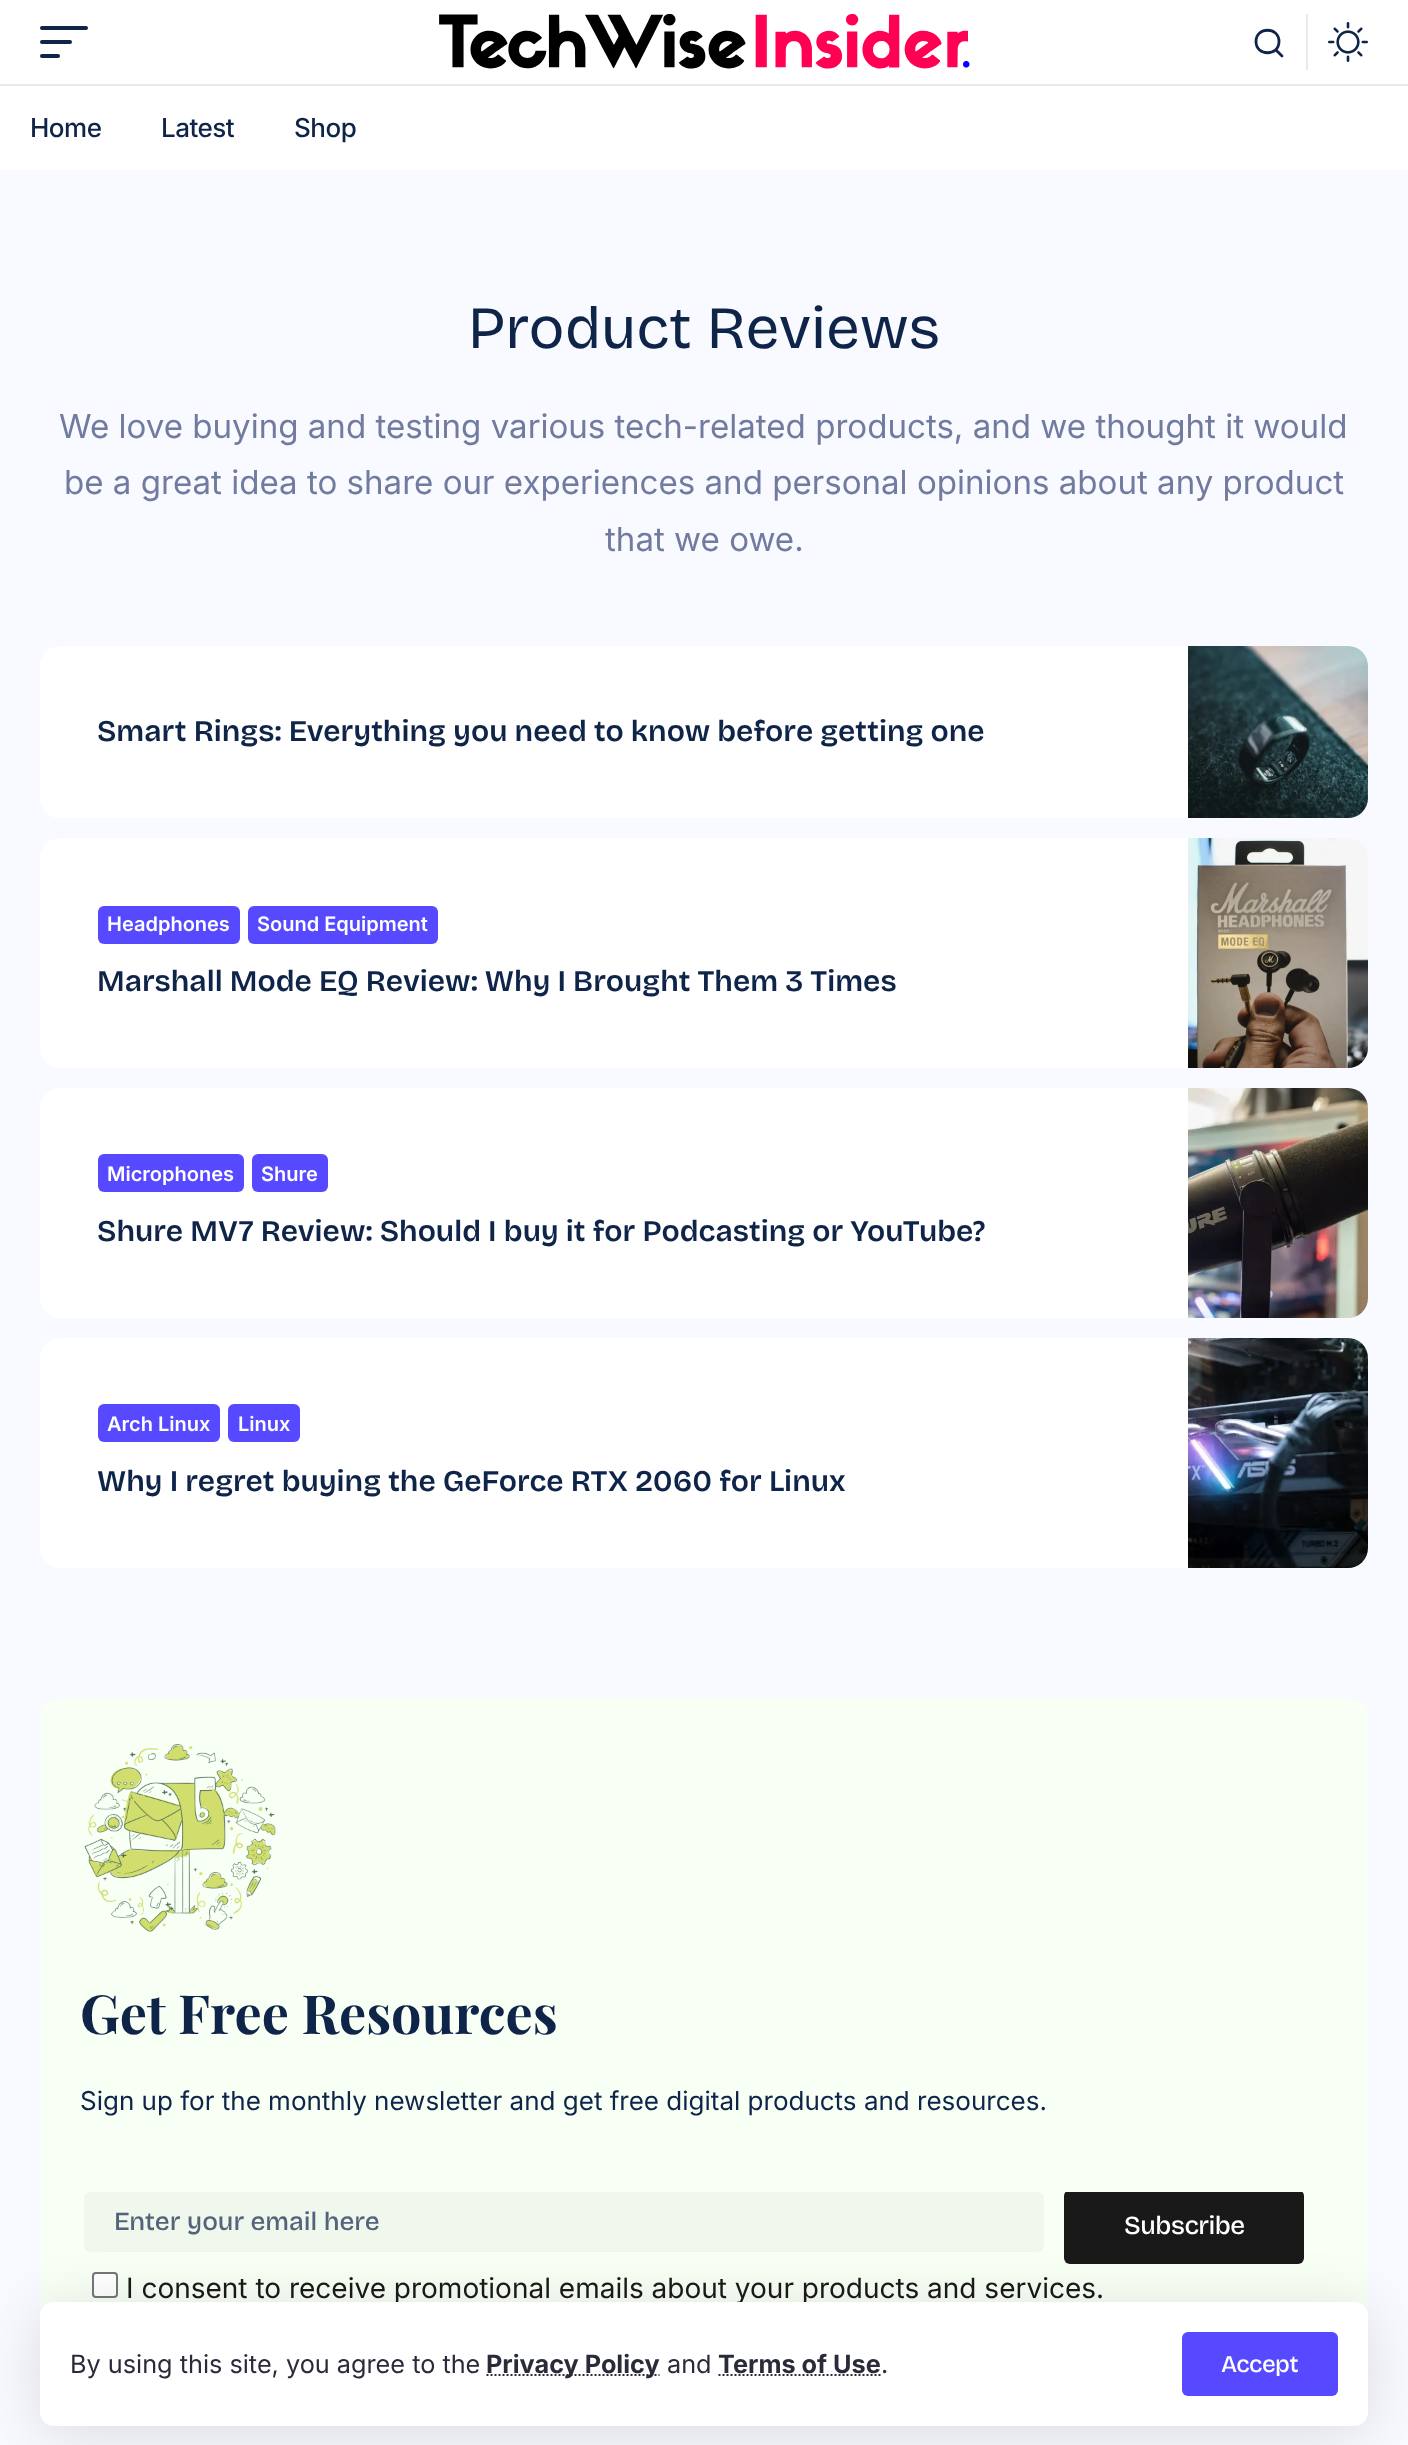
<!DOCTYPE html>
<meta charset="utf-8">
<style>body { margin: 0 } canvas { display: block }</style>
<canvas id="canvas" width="1408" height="2445"></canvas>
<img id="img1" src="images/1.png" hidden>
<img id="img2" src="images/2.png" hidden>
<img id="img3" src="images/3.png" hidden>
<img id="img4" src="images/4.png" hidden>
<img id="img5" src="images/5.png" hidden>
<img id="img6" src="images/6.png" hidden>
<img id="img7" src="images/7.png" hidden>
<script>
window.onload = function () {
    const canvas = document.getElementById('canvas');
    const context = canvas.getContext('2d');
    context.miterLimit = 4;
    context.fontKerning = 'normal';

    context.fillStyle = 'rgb(248, 250, 255)';
    context.fillRect(0, 0, 1408, 2445);
    context.fillStyle = 'rgb(255, 255, 255)';
    context.fillRect(0, 0, 1408, 170);
    context.fillStyle = 'rgb(15, 36, 73)';
    context.beginPath();
    context.roundRect(40, 26, 48, 4, 2);
    context.fill();
    context.beginPath();
    context.roundRect(40, 40, 32, 4, 2);
    context.fill();
    context.beginPath();
    context.roundRect(40, 54, 20, 4, 2);
    context.fill();
    context.drawImage(document.getElementById('img1'), 439, 14, 531, 55);
    context.beginPath();
    context.moveTo(1276, 50);
    context.lineTo(1282, 56);
    context.strokeStyle = 'rgb(15, 36, 73)';
    context.lineWidth = 2.8;
    context.lineCap = 'round';
    context.lineJoin = 'round';
    context.stroke();
    context.beginPath();
    context.moveTo(1279, 41.5);
    context.bezierCurveTo(1279, 56.5, 1256, 56.5, 1256, 41.5);
    context.bezierCurveTo(1256, 26.5, 1279, 26.5, 1279, 41.5);
    context.closePath();
    context.lineCap = 'butt';
    context.lineJoin = 'miter';
    context.stroke();
    context.fillStyle = 'rgb(234, 234, 234)';
    context.fillRect(1306, 14, 2, 56);
    context.drawImage(document.getElementById('img2'), 1328, 22, 40, 40);
    context.fillRect(0, 84, 1408, 2);
    context.fillStyle = 'rgb(248, 255, 245)';
    context.beginPath();
    context.roundRect(40, 1698, 1328, 694, 20);
    context.fill();
    context.fillStyle = 'rgb(240, 247, 237)';
    context.beginPath();
    context.roundRect(84, 2192, 960, 60, 6);
    context.fill();
    context.save();
    context.beginPath();
    context.rect(84, 2192, 1240, 120);
    context.clip();
    context.fillStyle = 'rgb(25, 25, 25)';
    context.beginPath();
    context.roundRect(1064, 2190, 240, 74, 6);
    context.fill();
    context.restore();
    context.fillStyle = 'rgb(255, 255, 255)';
    context.beginPath();
    context.roundRect(93, 2273, 24, 24, 3);
    context.fill();
    context.strokeStyle = 'rgb(118, 118, 118)';
    context.lineWidth = 2;
    context.stroke();
    context.fillStyle = 'rgba(0, 0, 0, 0.12)';
    context.filter = 'blur(30px)';
    context.beginPath();
    context.roundRect(40, 2310, 1328, 124, 14);
    context.fill();
    context.filter = 'none';
    context.fillStyle = 'rgb(255, 255, 255)';
    context.beginPath();
    context.roundRect(40, 646, 1328, 172, 20);
    context.fill();
    context.drawImage(document.getElementById('img3'), 1188, 646, 180, 172);
    context.beginPath();
    context.roundRect(40, 838, 1328, 230, 20);
    context.fill();
    context.fillStyle = 'rgb(86, 73, 255)';
    context.beginPath();
    context.roundRect(98, 906, 142, 38, 6);
    context.fill();
    context.beginPath();
    context.roundRect(248, 906, 190, 38, 6);
    context.fill();
    context.drawImage(document.getElementById('img4'), 1188, 838, 180, 230);
    context.fillStyle = 'rgb(255, 255, 255)';
    context.beginPath();
    context.roundRect(40, 1088, 1328, 230, 20);
    context.fill();
    context.fillStyle = 'rgb(86, 73, 255)';
    context.beginPath();
    context.roundRect(98, 1154, 146, 38, 6);
    context.fill();
    context.beginPath();
    context.roundRect(252, 1154, 76, 38, 6);
    context.fill();
    context.drawImage(document.getElementById('img5'), 1188, 1088, 180, 230);
    context.fillStyle = 'rgb(255, 255, 255)';
    context.beginPath();
    context.roundRect(40, 1338, 1328, 230, 20);
    context.fill();
    context.fillStyle = 'rgb(86, 73, 255)';
    context.beginPath();
    context.roundRect(98, 1404, 122, 38, 6);
    context.fill();
    context.beginPath();
    context.roundRect(228, 1404, 72, 38, 6);
    context.fill();
    context.drawImage(document.getElementById('img6'), 1188, 1338, 180, 230);
    context.drawImage(document.getElementById('img7'), 84, 1744, 192, 188);
    context.letterSpacing = '-0.5px';
    context.font = '500 26px Inter';
    context.fillStyle = 'rgb(15, 36, 73)';
    context.fillText('Home', 30, 137);
    context.fillText('Latest', 161, 137);
    context.fillText('Shop', 294, 137);
    context.letterSpacing = '0px';
    context.font = '60px Bricolage Grotesque';
    context.fillText('Product Reviews', 468, 348);
    context.font = '33.1px Inter';
    context.fillStyle = 'rgb(113, 123, 160)';
    context.fillText('We love buying and testing various tech-related products, and we thought it would', 59, 438);
    context.fillText('be a great idea to share our experiences and personal opinions about any product', 64, 494);
    context.fillText('that we owe.', 605, 551);
    context.font = '600 30px Bricolage Grotesque';
    context.fillStyle = 'rgb(15, 36, 73)';
    context.fillText('Smart Rings: Everything you need to know before getting one', 97, 741);
    context.font = '600 20px Inter';
    context.fillStyle = 'rgb(255, 255, 255)';
    context.fillText('Headphones', 107, 931);
    context.fillText('Sound Equipment', 257, 931);
    context.font = '600 30px Bricolage Grotesque';
    context.fillStyle = 'rgb(15, 36, 73)';
    context.fillText('Marshall Mode EQ Review: Why I Brought Them 3 Times', 97, 991);
    context.font = '600 20px Inter';
    context.fillStyle = 'rgb(255, 255, 255)';
    context.fillText('Microphones', 107, 1181);
    context.fillText('Shure', 261, 1181);
    context.font = '600 30px Bricolage Grotesque';
    context.fillStyle = 'rgb(15, 36, 73)';
    context.fillText('Shure MV7 Review: Should I buy it for Podcasting or YouTube?', 97, 1241);
    context.font = '600 20px Inter';
    context.fillStyle = 'rgb(255, 255, 255)';
    context.fillText('Arch Linux', 107, 1431);
    context.fillText('Linux', 238, 1431);
    context.font = '600 30px Bricolage Grotesque';
    context.fillStyle = 'rgb(15, 36, 73)';
    context.fillText('Why I regret buying the GeForce RTX 2060 for Linux', 97, 1491);
    context.font = 'bold 54px Playfair Display';
    context.fillText('Get Free Resources', 80, 2034);
    context.font = '26px Inter';
    context.fillText('Sign up for the monthly newsletter and get free digital products and resources.', 80, 2110);
    context.font = '500 26px Bricolage Grotesque';
    context.fillStyle = 'rgb(83, 99, 122)';
    context.fillText('Enter your email here', 114, 2230);
    context.letterSpacing = '-0.5px';
    context.fillStyle = 'rgb(255, 255, 255)';
    context.fillText('Subscribe', 1124, 2234);
    context.letterSpacing = '0px';
    context.font = '28px Inter';
    context.fillStyle = 'rgb(25, 25, 25)';
    context.fillText('I consent to receive promotional emails about your products and services.', 126, 2298);
    context.fillStyle = 'rgb(255, 255, 255)';
    context.beginPath();
    context.roundRect(40, 2302, 1328, 124, 14);
    context.fill();
    context.fillStyle = 'rgb(86, 73, 255)';
    context.beginPath();
    context.roundRect(1182, 2332, 156, 64, 6);
    context.fill();
    context.letterSpacing = '-0.5px';
    context.font = '500 24px Bricolage Grotesque';
    context.fillStyle = 'rgb(255, 255, 255)';
    context.fillText('Accept', 1221, 2372);
    context.letterSpacing = '0px';
    context.font = '25.25px Inter';
    context.fillStyle = 'rgb(41, 43, 58)';
    context.fillText('.', 881, 2373);
    context.font = 'bold 25.25px Inter';
    context.fillText('Terms of Use', 718, 2373);
    context.beginPath();
    context.moveTo(718.5, 2375);
    context.lineTo(880.5, 2375);
    context.strokeStyle = 'rgb(41, 43, 58)';
    context.setLineDash([2, 2]);
    context.stroke();
    context.font = '25.25px Inter';
    context.fillText('and', 667, 2373);
    context.beginPath();
    context.moveTo(486.5, 2375);
    context.lineTo(659.5, 2375);
    context.stroke();
    context.font = 'bold 25.25px Inter';
    context.fillText('Privacy Policy', 486, 2373);
    context.font = '25.25px Inter';
    context.fillText('By using this site, you agree to the', 70, 2373);
};
</script>
